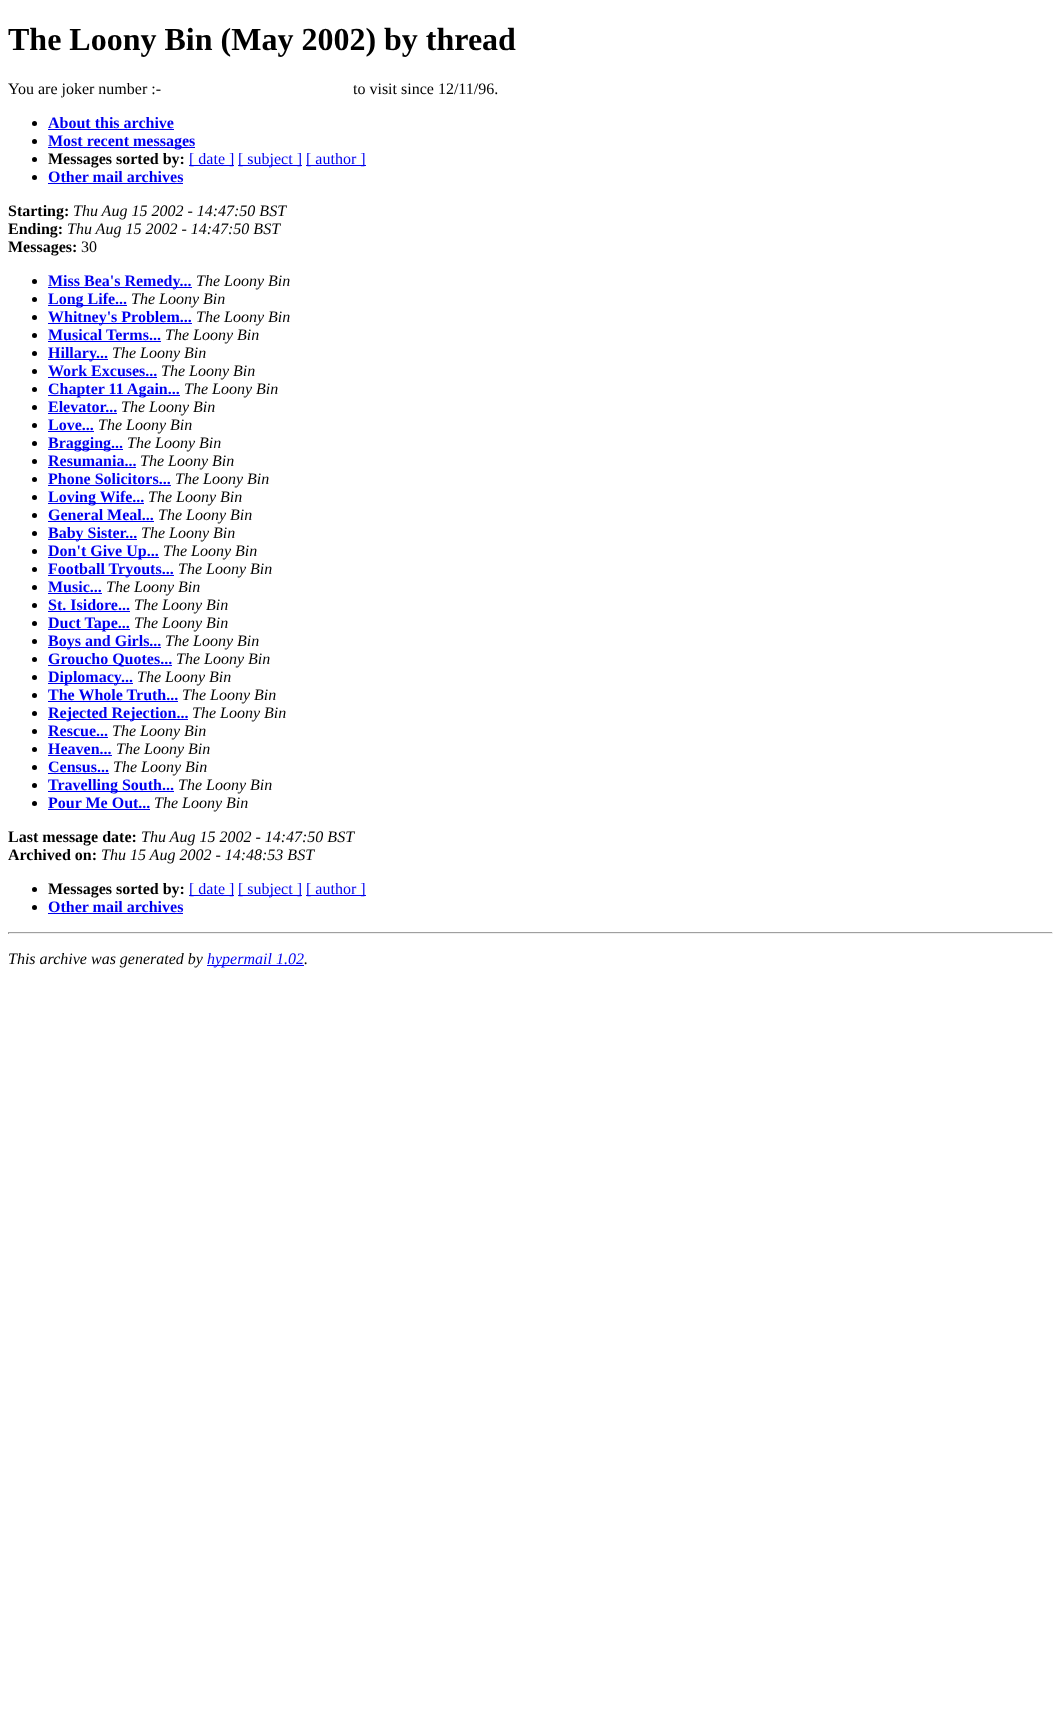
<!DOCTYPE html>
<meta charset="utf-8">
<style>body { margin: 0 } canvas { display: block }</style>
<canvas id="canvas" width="1061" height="1735"></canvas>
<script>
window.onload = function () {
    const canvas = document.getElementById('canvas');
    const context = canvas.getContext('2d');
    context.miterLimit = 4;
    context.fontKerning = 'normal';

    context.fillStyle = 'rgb(255, 255, 255)';
    context.fillRect(0, 0, 1061, 1735);
    context.fillStyle = 'rgb(0, 0, 0)';
    context.beginPath();
    context.arc(34.5, 123.5, 2.5, 0, 2 * Math.PI);
    context.fill();
    context.fillStyle = 'rgb(0, 0, 238)';
    context.fillRect(48, 129, 126, 1);
    context.fillStyle = 'rgb(0, 0, 0)';
    context.beginPath();
    context.arc(34.5, 141.5, 2.5, 0, 2 * Math.PI);
    context.fill();
    context.fillStyle = 'rgb(0, 0, 238)';
    context.fillRect(48, 147, 147, 1);
    context.fillStyle = 'rgb(0, 0, 0)';
    context.beginPath();
    context.arc(34.5, 159.5, 2.5, 0, 2 * Math.PI);
    context.fill();
    context.fillStyle = 'rgb(0, 0, 238)';
    context.fillRect(189, 165, 45, 1);
    context.fillRect(238, 165, 64, 1);
    context.fillRect(306, 165, 60, 1);
    context.fillStyle = 'rgb(0, 0, 0)';
    context.beginPath();
    context.arc(34.5, 177.5, 2.5, 0, 2 * Math.PI);
    context.fill();
    context.fillStyle = 'rgb(0, 0, 238)';
    context.fillRect(48, 183, 135, 1);
    context.fillStyle = 'rgb(0, 0, 0)';
    context.beginPath();
    context.arc(34.5, 281.5, 2.5, 0, 2 * Math.PI);
    context.fill();
    context.fillStyle = 'rgb(0, 0, 238)';
    context.fillRect(48, 287, 144, 1);
    context.fillStyle = 'rgb(0, 0, 0)';
    context.beginPath();
    context.arc(34.5, 299.5, 2.5, 0, 2 * Math.PI);
    context.fill();
    context.fillStyle = 'rgb(0, 0, 238)';
    context.fillRect(48, 305, 79, 1);
    context.fillStyle = 'rgb(0, 0, 0)';
    context.beginPath();
    context.arc(34.5, 317.5, 2.5, 0, 2 * Math.PI);
    context.fill();
    context.fillStyle = 'rgb(0, 0, 238)';
    context.fillRect(48, 323, 144, 1);
    context.fillStyle = 'rgb(0, 0, 0)';
    context.beginPath();
    context.arc(34.5, 335.5, 2.5, 0, 2 * Math.PI);
    context.fill();
    context.fillStyle = 'rgb(0, 0, 238)';
    context.fillRect(48, 341, 113, 1);
    context.fillStyle = 'rgb(0, 0, 0)';
    context.beginPath();
    context.arc(34.5, 353.5, 2.5, 0, 2 * Math.PI);
    context.fill();
    context.fillStyle = 'rgb(0, 0, 238)';
    context.fillRect(48, 359, 60, 1);
    context.fillStyle = 'rgb(0, 0, 0)';
    context.beginPath();
    context.arc(34.5, 371.5, 2.5, 0, 2 * Math.PI);
    context.fill();
    context.fillStyle = 'rgb(0, 0, 238)';
    context.fillRect(48, 377, 109, 1);
    context.fillStyle = 'rgb(0, 0, 0)';
    context.beginPath();
    context.arc(34.5, 389.5, 2.5, 0, 2 * Math.PI);
    context.fill();
    context.fillStyle = 'rgb(0, 0, 238)';
    context.fillRect(48, 395, 132, 1);
    context.fillStyle = 'rgb(0, 0, 0)';
    context.beginPath();
    context.arc(34.5, 407.5, 2.5, 0, 2 * Math.PI);
    context.fill();
    context.fillStyle = 'rgb(0, 0, 238)';
    context.fillRect(48, 413, 69, 1);
    context.fillStyle = 'rgb(0, 0, 0)';
    context.beginPath();
    context.arc(34.5, 425.5, 2.5, 0, 2 * Math.PI);
    context.fill();
    context.fillStyle = 'rgb(0, 0, 238)';
    context.fillRect(48, 431, 46, 1);
    context.fillStyle = 'rgb(0, 0, 0)';
    context.beginPath();
    context.arc(34.5, 443.5, 2.5, 0, 2 * Math.PI);
    context.fill();
    context.fillStyle = 'rgb(0, 0, 238)';
    context.fillRect(48, 449, 75, 1);
    context.fillStyle = 'rgb(0, 0, 0)';
    context.beginPath();
    context.arc(34.5, 461.5, 2.5, 0, 2 * Math.PI);
    context.fill();
    context.fillStyle = 'rgb(0, 0, 238)';
    context.fillRect(48, 467, 88, 1);
    context.fillStyle = 'rgb(0, 0, 0)';
    context.beginPath();
    context.arc(34.5, 479.5, 2.5, 0, 2 * Math.PI);
    context.fill();
    context.fillStyle = 'rgb(0, 0, 238)';
    context.fillRect(48, 485, 123, 1);
    context.fillStyle = 'rgb(0, 0, 0)';
    context.beginPath();
    context.arc(34.5, 497.5, 2.5, 0, 2 * Math.PI);
    context.fill();
    context.fillStyle = 'rgb(0, 0, 238)';
    context.fillRect(48, 503, 96, 1);
    context.fillStyle = 'rgb(0, 0, 0)';
    context.beginPath();
    context.arc(34.5, 515.5, 2.5, 0, 2 * Math.PI);
    context.fill();
    context.fillStyle = 'rgb(0, 0, 238)';
    context.fillRect(48, 521, 106, 1);
    context.fillStyle = 'rgb(0, 0, 0)';
    context.beginPath();
    context.arc(34.5, 533.5, 2.5, 0, 2 * Math.PI);
    context.fill();
    context.fillStyle = 'rgb(0, 0, 238)';
    context.fillRect(48, 539, 89, 1);
    context.fillStyle = 'rgb(0, 0, 0)';
    context.beginPath();
    context.arc(34.5, 551.5, 2.5, 0, 2 * Math.PI);
    context.fill();
    context.fillStyle = 'rgb(0, 0, 238)';
    context.fillRect(48, 557, 111, 1);
    context.fillStyle = 'rgb(0, 0, 0)';
    context.beginPath();
    context.arc(34.5, 569.5, 2.5, 0, 2 * Math.PI);
    context.fill();
    context.fillStyle = 'rgb(0, 0, 238)';
    context.fillRect(48, 575, 126, 1);
    context.fillStyle = 'rgb(0, 0, 0)';
    context.beginPath();
    context.arc(34.5, 587.5, 2.5, 0, 2 * Math.PI);
    context.fill();
    context.fillStyle = 'rgb(0, 0, 238)';
    context.fillRect(48, 593, 54, 1);
    context.fillStyle = 'rgb(0, 0, 0)';
    context.beginPath();
    context.arc(34.5, 605.5, 2.5, 0, 2 * Math.PI);
    context.fill();
    context.fillStyle = 'rgb(0, 0, 238)';
    context.fillRect(48, 611, 82, 1);
    context.fillStyle = 'rgb(0, 0, 0)';
    context.beginPath();
    context.arc(34.5, 623.5, 2.5, 0, 2 * Math.PI);
    context.fill();
    context.fillStyle = 'rgb(0, 0, 238)';
    context.fillRect(48, 629, 82, 1);
    context.fillStyle = 'rgb(0, 0, 0)';
    context.beginPath();
    context.arc(34.5, 641.5, 2.5, 0, 2 * Math.PI);
    context.fill();
    context.fillStyle = 'rgb(0, 0, 238)';
    context.fillRect(48, 647, 113, 1);
    context.fillStyle = 'rgb(0, 0, 0)';
    context.beginPath();
    context.arc(34.5, 659.5, 2.5, 0, 2 * Math.PI);
    context.fill();
    context.fillStyle = 'rgb(0, 0, 238)';
    context.fillRect(48, 665, 124, 1);
    context.fillStyle = 'rgb(0, 0, 0)';
    context.beginPath();
    context.arc(34.5, 677.5, 2.5, 0, 2 * Math.PI);
    context.fill();
    context.fillStyle = 'rgb(0, 0, 238)';
    context.fillRect(48, 683, 85, 1);
    context.fillStyle = 'rgb(0, 0, 0)';
    context.beginPath();
    context.arc(34.5, 695.5, 2.5, 0, 2 * Math.PI);
    context.fill();
    context.fillStyle = 'rgb(0, 0, 238)';
    context.fillRect(48, 701, 130, 1);
    context.fillStyle = 'rgb(0, 0, 0)';
    context.beginPath();
    context.arc(34.5, 713.5, 2.5, 0, 2 * Math.PI);
    context.fill();
    context.fillStyle = 'rgb(0, 0, 238)';
    context.fillRect(48, 719, 140, 1);
    context.fillStyle = 'rgb(0, 0, 0)';
    context.beginPath();
    context.arc(34.5, 731.5, 2.5, 0, 2 * Math.PI);
    context.fill();
    context.fillStyle = 'rgb(0, 0, 238)';
    context.fillRect(48, 737, 60, 1);
    context.fillStyle = 'rgb(0, 0, 0)';
    context.beginPath();
    context.arc(34.5, 749.5, 2.5, 0, 2 * Math.PI);
    context.fill();
    context.fillStyle = 'rgb(0, 0, 238)';
    context.fillRect(48, 755, 64, 1);
    context.fillStyle = 'rgb(0, 0, 0)';
    context.beginPath();
    context.arc(34.5, 767.5, 2.5, 0, 2 * Math.PI);
    context.fill();
    context.fillStyle = 'rgb(0, 0, 238)';
    context.fillRect(48, 773, 61, 1);
    context.fillStyle = 'rgb(0, 0, 0)';
    context.beginPath();
    context.arc(34.5, 785.5, 2.5, 0, 2 * Math.PI);
    context.fill();
    context.fillStyle = 'rgb(0, 0, 238)';
    context.fillRect(48, 791, 126, 1);
    context.fillStyle = 'rgb(0, 0, 0)';
    context.beginPath();
    context.arc(34.5, 803.5, 2.5, 0, 2 * Math.PI);
    context.fill();
    context.fillStyle = 'rgb(0, 0, 238)';
    context.fillRect(48, 809, 102, 1);
    context.fillStyle = 'rgb(0, 0, 0)';
    context.beginPath();
    context.arc(34.5, 889.5, 2.5, 0, 2 * Math.PI);
    context.fill();
    context.fillStyle = 'rgb(0, 0, 238)';
    context.fillRect(189, 895, 45, 1);
    context.fillRect(238, 895, 64, 1);
    context.fillRect(306, 895, 60, 1);
    context.fillStyle = 'rgb(0, 0, 0)';
    context.beginPath();
    context.arc(34.5, 907.5, 2.5, 0, 2 * Math.PI);
    context.fill();
    context.fillStyle = 'rgb(0, 0, 238)';
    context.fillRect(48, 913, 135, 1);
    context.fillStyle = 'rgb(159, 159, 159)';
    context.fillRect(8, 932, 1045, 1);
    context.fillStyle = 'rgb(238, 238, 238)';
    context.fillRect(1052, 932, 1, 2);
    context.fillRect(8, 933, 1045, 1);
    context.fillStyle = 'rgb(159, 159, 159)';
    context.fillRect(8, 932, 1, 2);
    context.fillStyle = 'rgb(0, 0, 238)';
    context.fillRect(207, 965, 97, 1);
    context.font = 'bold 32px Liberation Serif';
    context.fillStyle = 'rgb(0, 0, 0)';
    context.fillText('The Loony Bin (May 2002) by thread', 8, 50);
    context.font = '16px Liberation Serif';
    context.fillText('You are joker number :-', 8, 94);
    context.fillText('to visit since 12/11/96.', 353, 94);
    context.font = 'bold 16px Liberation Serif';
    context.fillStyle = 'rgb(0, 0, 238)';
    context.fillText('About this archive', 48, 128);
    context.fillText('Most recent messages', 48, 146);
    context.fillStyle = 'rgb(0, 0, 0)';
    context.fillText('Messages sorted by:', 48, 164);
    context.font = '16px Liberation Serif';
    context.fillStyle = 'rgb(0, 0, 238)';
    context.fillText('[ date ]', 189, 164);
    context.fillText('[ subject ]', 238, 164);
    context.fillText('[ author ]', 306, 164);
    context.font = 'bold 16px Liberation Serif';
    context.fillText('Other mail archives', 48, 182);
    context.fillStyle = 'rgb(0, 0, 0)';
    context.fillText('Starting:', 8, 216);
    context.font = 'italic 16px Liberation Serif';
    context.fillText('Thu Aug 15 2002 - 14:47:50 BST', 73, 216);
    context.font = 'bold 16px Liberation Serif';
    context.fillText('Ending:', 8, 234);
    context.font = 'italic 16px Liberation Serif';
    context.fillText('Thu Aug 15 2002 - 14:47:50 BST', 67, 234);
    context.font = 'bold 16px Liberation Serif';
    context.fillText('Messages:', 8, 252);
    context.font = '16px Liberation Serif';
    context.fillText('30', 81, 252);
    context.font = 'bold 16px Liberation Serif';
    context.fillStyle = 'rgb(0, 0, 238)';
    context.fillText('Miss Bea\'s Remedy...', 48, 286);
    context.font = 'italic 16px Liberation Serif';
    context.fillStyle = 'rgb(0, 0, 0)';
    context.fillText('The Loony Bin', 196, 286);
    context.font = 'bold 16px Liberation Serif';
    context.fillStyle = 'rgb(0, 0, 238)';
    context.fillText('Long Life...', 48, 304);
    context.font = 'italic 16px Liberation Serif';
    context.fillStyle = 'rgb(0, 0, 0)';
    context.fillText('The Loony Bin', 131, 304);
    context.font = 'bold 16px Liberation Serif';
    context.fillStyle = 'rgb(0, 0, 238)';
    context.fillText('Whitney\'s Problem...', 48, 322);
    context.font = 'italic 16px Liberation Serif';
    context.fillStyle = 'rgb(0, 0, 0)';
    context.fillText('The Loony Bin', 196, 322);
    context.font = 'bold 16px Liberation Serif';
    context.fillStyle = 'rgb(0, 0, 238)';
    context.fillText('Musical Terms...', 48, 340);
    context.font = 'italic 16px Liberation Serif';
    context.fillStyle = 'rgb(0, 0, 0)';
    context.fillText('The Loony Bin', 165, 340);
    context.font = 'bold 16px Liberation Serif';
    context.fillStyle = 'rgb(0, 0, 238)';
    context.fillText('Hillary...', 48, 358);
    context.font = 'italic 16px Liberation Serif';
    context.fillStyle = 'rgb(0, 0, 0)';
    context.fillText('The Loony Bin', 112, 358);
    context.font = 'bold 16px Liberation Serif';
    context.fillStyle = 'rgb(0, 0, 238)';
    context.fillText('Work Excuses...', 48, 376);
    context.font = 'italic 16px Liberation Serif';
    context.fillStyle = 'rgb(0, 0, 0)';
    context.fillText('The Loony Bin', 161, 376);
    context.font = 'bold 16px Liberation Serif';
    context.fillStyle = 'rgb(0, 0, 238)';
    context.fillText('Chapter 11 Again...', 48, 394);
    context.font = 'italic 16px Liberation Serif';
    context.fillStyle = 'rgb(0, 0, 0)';
    context.fillText('The Loony Bin', 184, 394);
    context.font = 'bold 16px Liberation Serif';
    context.fillStyle = 'rgb(0, 0, 238)';
    context.fillText('Elevator...', 48, 412);
    context.font = 'italic 16px Liberation Serif';
    context.fillStyle = 'rgb(0, 0, 0)';
    context.fillText('The Loony Bin', 121, 412);
    context.font = 'bold 16px Liberation Serif';
    context.fillStyle = 'rgb(0, 0, 238)';
    context.fillText('Love...', 48, 430);
    context.font = 'italic 16px Liberation Serif';
    context.fillStyle = 'rgb(0, 0, 0)';
    context.fillText('The Loony Bin', 98, 430);
    context.font = 'bold 16px Liberation Serif';
    context.fillStyle = 'rgb(0, 0, 238)';
    context.fillText('Bragging...', 48, 448);
    context.font = 'italic 16px Liberation Serif';
    context.fillStyle = 'rgb(0, 0, 0)';
    context.fillText('The Loony Bin', 127, 448);
    context.font = 'bold 16px Liberation Serif';
    context.fillStyle = 'rgb(0, 0, 238)';
    context.fillText('Resumania...', 48, 466);
    context.font = 'italic 16px Liberation Serif';
    context.fillStyle = 'rgb(0, 0, 0)';
    context.fillText('The Loony Bin', 140, 466);
    context.font = 'bold 16px Liberation Serif';
    context.fillStyle = 'rgb(0, 0, 238)';
    context.fillText('Phone Solicitors...', 48, 484);
    context.font = 'italic 16px Liberation Serif';
    context.fillStyle = 'rgb(0, 0, 0)';
    context.fillText('The Loony Bin', 175, 484);
    context.font = 'bold 16px Liberation Serif';
    context.fillStyle = 'rgb(0, 0, 238)';
    context.fillText('Loving Wife...', 48, 502);
    context.font = 'italic 16px Liberation Serif';
    context.fillStyle = 'rgb(0, 0, 0)';
    context.fillText('The Loony Bin', 148, 502);
    context.font = 'bold 16px Liberation Serif';
    context.fillStyle = 'rgb(0, 0, 238)';
    context.fillText('General Meal...', 48, 520);
    context.font = 'italic 16px Liberation Serif';
    context.fillStyle = 'rgb(0, 0, 0)';
    context.fillText('The Loony Bin', 158, 520);
    context.font = 'bold 16px Liberation Serif';
    context.fillStyle = 'rgb(0, 0, 238)';
    context.fillText('Baby Sister...', 48, 538);
    context.font = 'italic 16px Liberation Serif';
    context.fillStyle = 'rgb(0, 0, 0)';
    context.fillText('The Loony Bin', 141, 538);
    context.font = 'bold 16px Liberation Serif';
    context.fillStyle = 'rgb(0, 0, 238)';
    context.fillText('Don\'t Give Up...', 48, 556);
    context.font = 'italic 16px Liberation Serif';
    context.fillStyle = 'rgb(0, 0, 0)';
    context.fillText('The Loony Bin', 163, 556);
    context.font = 'bold 16px Liberation Serif';
    context.fillStyle = 'rgb(0, 0, 238)';
    context.fillText('Football Tryouts...', 48, 574);
    context.font = 'italic 16px Liberation Serif';
    context.fillStyle = 'rgb(0, 0, 0)';
    context.fillText('The Loony Bin', 178, 574);
    context.font = 'bold 16px Liberation Serif';
    context.fillStyle = 'rgb(0, 0, 238)';
    context.fillText('Music...', 48, 592);
    context.font = 'italic 16px Liberation Serif';
    context.fillStyle = 'rgb(0, 0, 0)';
    context.fillText('The Loony Bin', 106, 592);
    context.font = 'bold 16px Liberation Serif';
    context.fillStyle = 'rgb(0, 0, 238)';
    context.fillText('St. Isidore...', 48, 610);
    context.font = 'italic 16px Liberation Serif';
    context.fillStyle = 'rgb(0, 0, 0)';
    context.fillText('The Loony Bin', 134, 610);
    context.font = 'bold 16px Liberation Serif';
    context.fillStyle = 'rgb(0, 0, 238)';
    context.fillText('Duct Tape...', 48, 628);
    context.font = 'italic 16px Liberation Serif';
    context.fillStyle = 'rgb(0, 0, 0)';
    context.fillText('The Loony Bin', 134, 628);
    context.font = 'bold 16px Liberation Serif';
    context.fillStyle = 'rgb(0, 0, 238)';
    context.fillText('Boys and Girls...', 48, 646);
    context.font = 'italic 16px Liberation Serif';
    context.fillStyle = 'rgb(0, 0, 0)';
    context.fillText('The Loony Bin', 165, 646);
    context.font = 'bold 16px Liberation Serif';
    context.fillStyle = 'rgb(0, 0, 238)';
    context.fillText('Groucho Quotes...', 48, 664);
    context.font = 'italic 16px Liberation Serif';
    context.fillStyle = 'rgb(0, 0, 0)';
    context.fillText('The Loony Bin', 176, 664);
    context.font = 'bold 16px Liberation Serif';
    context.fillStyle = 'rgb(0, 0, 238)';
    context.fillText('Diplomacy...', 48, 682);
    context.font = 'italic 16px Liberation Serif';
    context.fillStyle = 'rgb(0, 0, 0)';
    context.fillText('The Loony Bin', 137, 682);
    context.font = 'bold 16px Liberation Serif';
    context.fillStyle = 'rgb(0, 0, 238)';
    context.fillText('The Whole Truth...', 48, 700);
    context.font = 'italic 16px Liberation Serif';
    context.fillStyle = 'rgb(0, 0, 0)';
    context.fillText('The Loony Bin', 182, 700);
    context.font = 'bold 16px Liberation Serif';
    context.fillStyle = 'rgb(0, 0, 238)';
    context.fillText('Rejected Rejection...', 48, 718);
    context.font = 'italic 16px Liberation Serif';
    context.fillStyle = 'rgb(0, 0, 0)';
    context.fillText('The Loony Bin', 192, 718);
    context.font = 'bold 16px Liberation Serif';
    context.fillStyle = 'rgb(0, 0, 238)';
    context.fillText('Rescue...', 48, 736);
    context.font = 'italic 16px Liberation Serif';
    context.fillStyle = 'rgb(0, 0, 0)';
    context.fillText('The Loony Bin', 112, 736);
    context.font = 'bold 16px Liberation Serif';
    context.fillStyle = 'rgb(0, 0, 238)';
    context.fillText('Heaven...', 48, 754);
    context.font = 'italic 16px Liberation Serif';
    context.fillStyle = 'rgb(0, 0, 0)';
    context.fillText('The Loony Bin', 116, 754);
    context.font = 'bold 16px Liberation Serif';
    context.fillStyle = 'rgb(0, 0, 238)';
    context.fillText('Census...', 48, 772);
    context.font = 'italic 16px Liberation Serif';
    context.fillStyle = 'rgb(0, 0, 0)';
    context.fillText('The Loony Bin', 113, 772);
    context.font = 'bold 16px Liberation Serif';
    context.fillStyle = 'rgb(0, 0, 238)';
    context.fillText('Travelling South...', 48, 790);
    context.font = 'italic 16px Liberation Serif';
    context.fillStyle = 'rgb(0, 0, 0)';
    context.fillText('The Loony Bin', 178, 790);
    context.font = 'bold 16px Liberation Serif';
    context.fillStyle = 'rgb(0, 0, 238)';
    context.fillText('Pour Me Out...', 48, 808);
    context.font = 'italic 16px Liberation Serif';
    context.fillStyle = 'rgb(0, 0, 0)';
    context.fillText('The Loony Bin', 154, 808);
    context.font = 'bold 16px Liberation Serif';
    context.fillText('Last message date:', 8, 842);
    context.font = 'italic 16px Liberation Serif';
    context.fillText('Thu Aug 15 2002 - 14:47:50 BST', 141, 842);
    context.font = 'bold 16px Liberation Serif';
    context.fillText('Archived on:', 8, 860);
    context.font = 'italic 16px Liberation Serif';
    context.fillText('Thu 15 Aug 2002 - 14:48:53 BST', 101, 860);
    context.font = 'bold 16px Liberation Serif';
    context.fillText('Messages sorted by:', 48, 894);
    context.font = '16px Liberation Serif';
    context.fillStyle = 'rgb(0, 0, 238)';
    context.fillText('[ date ]', 189, 894);
    context.fillText('[ subject ]', 238, 894);
    context.fillText('[ author ]', 306, 894);
    context.font = 'bold 16px Liberation Serif';
    context.fillText('Other mail archives', 48, 912);
    context.font = 'italic 16px Liberation Serif';
    context.fillStyle = 'rgb(0, 0, 0)';
    context.fillText('This archive was generated by', 8, 964);
    context.fillStyle = 'rgb(0, 0, 238)';
    context.fillText('hypermail 1.02', 207, 964);
    context.fillStyle = 'rgb(0, 0, 0)';
    context.fillText('.', 304, 964);
};
</script>
